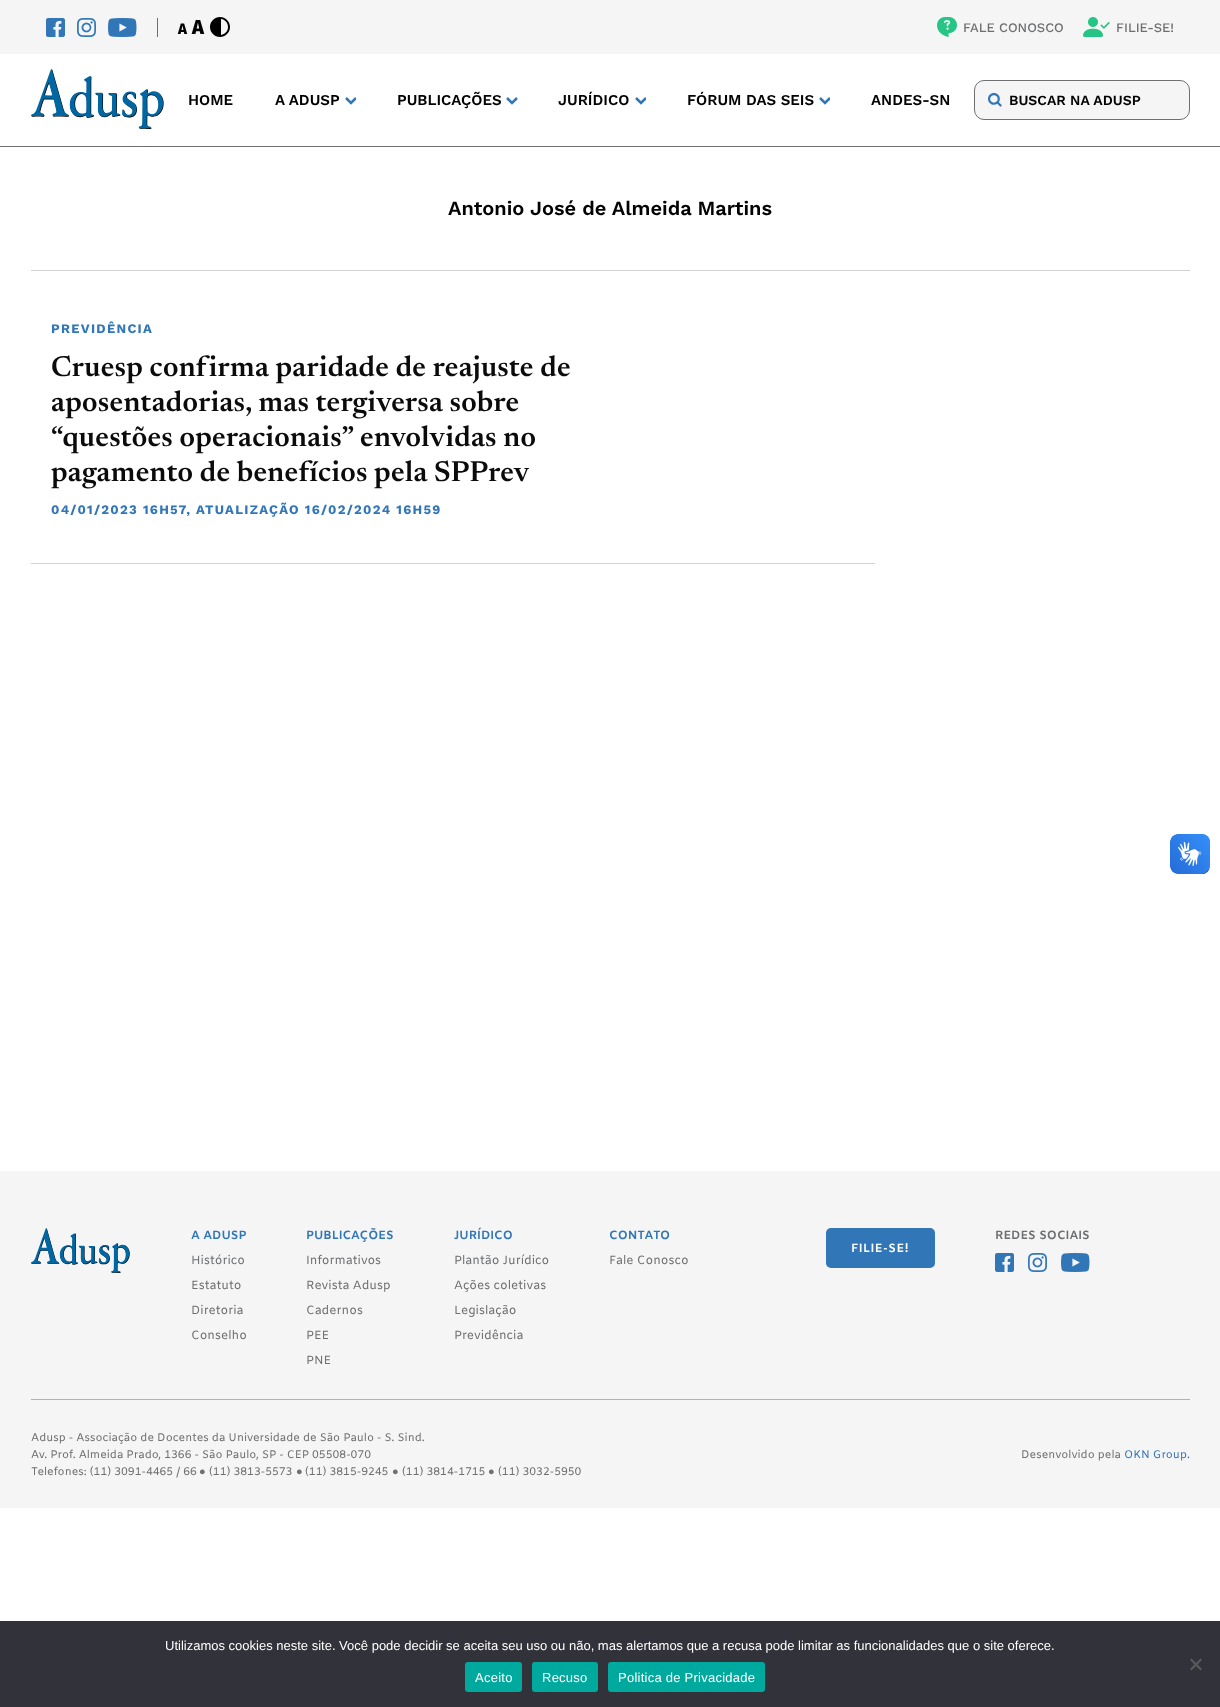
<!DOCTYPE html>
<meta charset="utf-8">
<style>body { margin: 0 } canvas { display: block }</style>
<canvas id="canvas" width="1220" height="1707"></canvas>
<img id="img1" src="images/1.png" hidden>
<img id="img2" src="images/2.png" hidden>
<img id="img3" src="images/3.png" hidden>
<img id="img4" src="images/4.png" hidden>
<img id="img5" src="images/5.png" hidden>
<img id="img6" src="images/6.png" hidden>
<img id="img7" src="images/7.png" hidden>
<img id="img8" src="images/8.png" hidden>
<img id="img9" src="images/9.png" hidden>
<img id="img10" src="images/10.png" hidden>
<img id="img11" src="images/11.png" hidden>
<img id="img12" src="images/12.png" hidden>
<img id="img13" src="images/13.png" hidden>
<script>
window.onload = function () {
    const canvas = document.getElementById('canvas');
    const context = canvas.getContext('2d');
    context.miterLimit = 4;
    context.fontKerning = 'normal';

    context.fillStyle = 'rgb(255, 255, 255)';
    context.fillRect(0, 0, 1220, 1707);
    context.fillStyle = 'rgb(245, 245, 245)';
    context.fillRect(0, 0, 1220, 54);
    context.fillStyle = 'rgb(110, 111, 113)';
    context.fillRect(157, 18, 1, 19);
    context.drawImage(document.getElementById('img1'), 46, 18, 19, 19);
    context.drawImage(document.getElementById('img2'), 77, 18, 19, 19);
    context.drawImage(document.getElementById('img3'), 108, 18, 29, 19);
    context.drawImage(document.getElementById('img4'), 210, 17, 20, 20);
    context.drawImage(document.getElementById('img5'), 937, 17, 20, 20);
    context.drawImage(document.getElementById('img6'), 1083, 17, 27, 20);
    context.fillRect(0, 146, 1220, 1);
    context.drawImage(document.getElementById('img7'), 31, 69, 133, 60);
    context.drawImage(document.getElementById('img8'), 345, 97, 11, 8);
    context.drawImage(document.getElementById('img9'), 506, 97, 12, 8);
    context.drawImage(document.getElementById('img8'), 635, 97, 11, 8);
    context.drawImage(document.getElementById('img8'), 819, 97, 11, 8);
    context.fillStyle = 'rgb(245, 245, 245)';
    context.beginPath();
    context.roundRect(974.5, 80.5, 215, 39, 9.5);
    context.fill();
    context.strokeStyle = 'rgb(110, 111, 113)';
    context.stroke();
    context.drawImage(document.getElementById('img10'), 988, 93, 14, 14);
    context.fillStyle = 'rgb(210, 210, 210)';
    context.fillRect(31, 270, 1159, 1);
    context.fillRect(31, 563, 844, 1);
    context.drawImage(document.getElementById('img11'), 1170, 834, 40, 40);
    context.drawImage(document.getElementById('img12'), 1170, 834, 40, 40);
    context.fillStyle = 'rgb(245, 245, 245)';
    context.fillRect(0, 1171, 1220, 337);
    context.fillStyle = 'rgb(178, 178, 179)';
    context.fillRect(31, 1399, 1159, 1);
    context.drawImage(document.getElementById('img13'), 31, 1228, 99, 45);
    context.drawImage(document.getElementById('img1'), 995, 1253, 19, 19);
    context.drawImage(document.getElementById('img2'), 1028, 1253, 19, 19);
    context.drawImage(document.getElementById('img3'), 1061, 1253, 29, 19);
    context.fillStyle = 'rgb(49, 118, 182)';
    context.beginPath();
    context.roundRect(826, 1228, 109, 40, 5);
    context.fill();
    context.fillStyle = 'rgb(50, 50, 58)';
    context.fillRect(0, 1621, 1220, 86);
    context.fillStyle = 'rgb(89, 89, 93)';
    context.beginPath();
    context.moveTo(1200.5, 1658.5);
    context.lineTo(1202, 1660);
    context.lineTo(1191.5, 1670.5);
    context.lineTo(1190, 1669);
    context.closePath();
    context.fill();
    context.beginPath();
    context.moveTo(1190, 1660);
    context.lineTo(1191.5, 1658.5);
    context.lineTo(1202, 1669);
    context.lineTo(1200.5, 1670.5);
    context.closePath();
    context.fill();
    context.fillStyle = 'rgb(0, 169, 157)';
    context.beginPath();
    context.roundRect(465, 1662, 57, 30, 3);
    context.fill();
    context.beginPath();
    context.roundRect(532, 1662, 66, 30, 3);
    context.fill();
    context.beginPath();
    context.roundRect(608, 1662, 157, 30, 3);
    context.fill();
    context.font = '800 15px Fira Sans';
    context.fillStyle = 'rgb(2, 2, 2)';
    context.fillText('A', 178, 34);
    context.font = '800 20px Fira Sans';
    context.fillText('A', 192, 34);
    context.font = '500 13px Work Sans';
    context.fillStyle = 'rgb(110, 111, 113)';
    context.fillText('FALE CONOSCO', 963, 32);
    context.fillText('FILIE-SE!', 1116, 32);
    context.font = '600 15px Work Sans';
    context.fillStyle = 'rgb(2, 2, 2)';
    context.fillText('HOME', 188, 105);
    context.fillText('A ADUSP', 275, 105);
    context.fillText('PUBLICAÇÕES', 397, 105);
    context.fillText('JURÍDICO', 558, 105);
    context.fillText('FÓRUM DAS SEIS', 687, 105);
    context.fillText('ANDES-SN', 871, 105);
    context.font = '600 14px Work Sans';
    context.fillText('BUSCAR NA ADUSP', 1009, 105);
    context.font = '600 20px Work Sans';
    context.fillText('Antonio José de Almeida Martins', 448, 215);
    context.letterSpacing = '1.3px';
    context.font = 'bold 13px Work Sans';
    context.fillStyle = 'rgb(49, 118, 182)';
    context.fillText('PREVIDÊNCIA', 51, 333);
    context.letterSpacing = '0.3px';
    context.font = '600 29px Newsreader';
    context.fillStyle = 'rgb(11, 11, 11)';
    context.fillText('Cruesp confirma paridade de reajuste de', 51, 376);
    context.fillText('aposentadorias, mas tergiversa sobre', 51, 411);
    context.fillText('“questões operacionais” envolvidas no', 51, 446);
    context.fillText('pagamento de benefícios pela SPPrev', 51, 481);
    context.letterSpacing = '1.3px';
    context.font = 'bold 13px Work Sans';
    context.fillStyle = 'rgb(49, 118, 182)';
    context.fillText('04/01/2023 16H57, ATUALIZAÇÃO 16/02/2024 16H59', 51, 514);
    context.letterSpacing = '0px';
    context.font = 'bold 12px Amiko';
    context.fillText('A ADUSP', 191, 1239);
    context.font = '12px Amiko';
    context.fillStyle = 'rgb(110, 111, 113)';
    context.fillText('Histórico', 191, 1264);
    context.fillText('Estatuto', 191, 1289);
    context.fillText('Diretoria', 191, 1314);
    context.fillText('Conselho', 191, 1339);
    context.font = 'bold 12px Amiko';
    context.fillStyle = 'rgb(49, 118, 182)';
    context.fillText('PUBLICAÇÕES', 306, 1239);
    context.font = '12px Amiko';
    context.fillStyle = 'rgb(110, 111, 113)';
    context.fillText('Informativos', 306, 1264);
    context.fillText('Revista Adusp', 306, 1289);
    context.fillText('Cadernos', 306, 1314);
    context.fillText('PEE', 306, 1339);
    context.fillText('PNE', 306, 1364);
    context.font = 'bold 12px Amiko';
    context.fillStyle = 'rgb(49, 118, 182)';
    context.fillText('JURÍDICO', 454, 1239);
    context.font = '12px Amiko';
    context.fillStyle = 'rgb(110, 111, 113)';
    context.fillText('Plantão Jurídico', 454, 1264);
    context.fillText('Ações coletivas', 454, 1289);
    context.fillText('Legislação', 454, 1314);
    context.fillText('Previdência', 454, 1339);
    context.font = 'bold 12px Amiko';
    context.fillStyle = 'rgb(49, 118, 182)';
    context.fillText('CONTATO', 609, 1239);
    context.font = '12px Amiko';
    context.fillStyle = 'rgb(110, 111, 113)';
    context.fillText('Fale Conosco', 609, 1264);
    context.font = 'bold 12px Amiko';
    context.fillText('REDES SOCIAIS', 995, 1239);
    context.letterSpacing = '0.5px';
    context.fillStyle = 'rgb(255, 255, 255)';
    context.fillText('FILIE-SE!', 851, 1252);
    context.letterSpacing = '0px';
    context.font = '11px Amiko';
    context.fillStyle = 'rgb(110, 111, 113)';
    context.fillText('Adusp - Associação de Docentes da Universidade de São Paulo - S. Sind.', 31, 1441);
    context.fillText('Av. Prof. Almeida Prado, 1366 - São Paulo, SP - CEP 05508-070', 31, 1458);
    context.fillText('Telefones: (11) 3091-4465 / 66', 31, 1475);
    context.font = '11px Liberation Sans';
    context.fillText('●', 199, 1475);
    context.font = '11px Amiko';
    context.fillText('(11) 3813-5573', 209, 1475);
    context.font = '11px Liberation Sans';
    context.fillText('●', 296, 1475);
    context.font = '11px Amiko';
    context.fillText('(11) 3815-9245', 305, 1475);
    context.font = '11px Liberation Sans';
    context.fillText('●', 392, 1475);
    context.font = '11px Amiko';
    context.fillText('(11) 3814-1715', 402, 1475);
    context.font = '11px Liberation Sans';
    context.fillText('●', 488, 1475);
    context.font = '11px Amiko';
    context.fillText('(11) 3032-5950', 498, 1475);
    context.fillText('Desenvolvido pela', 1021, 1458);
    context.fillStyle = 'rgb(49, 118, 182)';
    context.fillText('OKN Group.', 1124, 1458);
    context.font = '13px Liberation Sans';
    context.fillStyle = 'rgb(255, 255, 255)';
    context.fillText('Utilizamos cookies neste site. Você pode decidir se aceita seu uso ou não, mas alertamos que a recusa pode limitar as funcionalidades que o site oferece.', 165, 1650);
    context.letterSpacing = '0.25px';
    context.fillText('Aceito', 475, 1682);
    context.fillText('Recuso', 542, 1682);
    context.fillText('Politica de Privacidade', 618, 1682);
};
</script>
